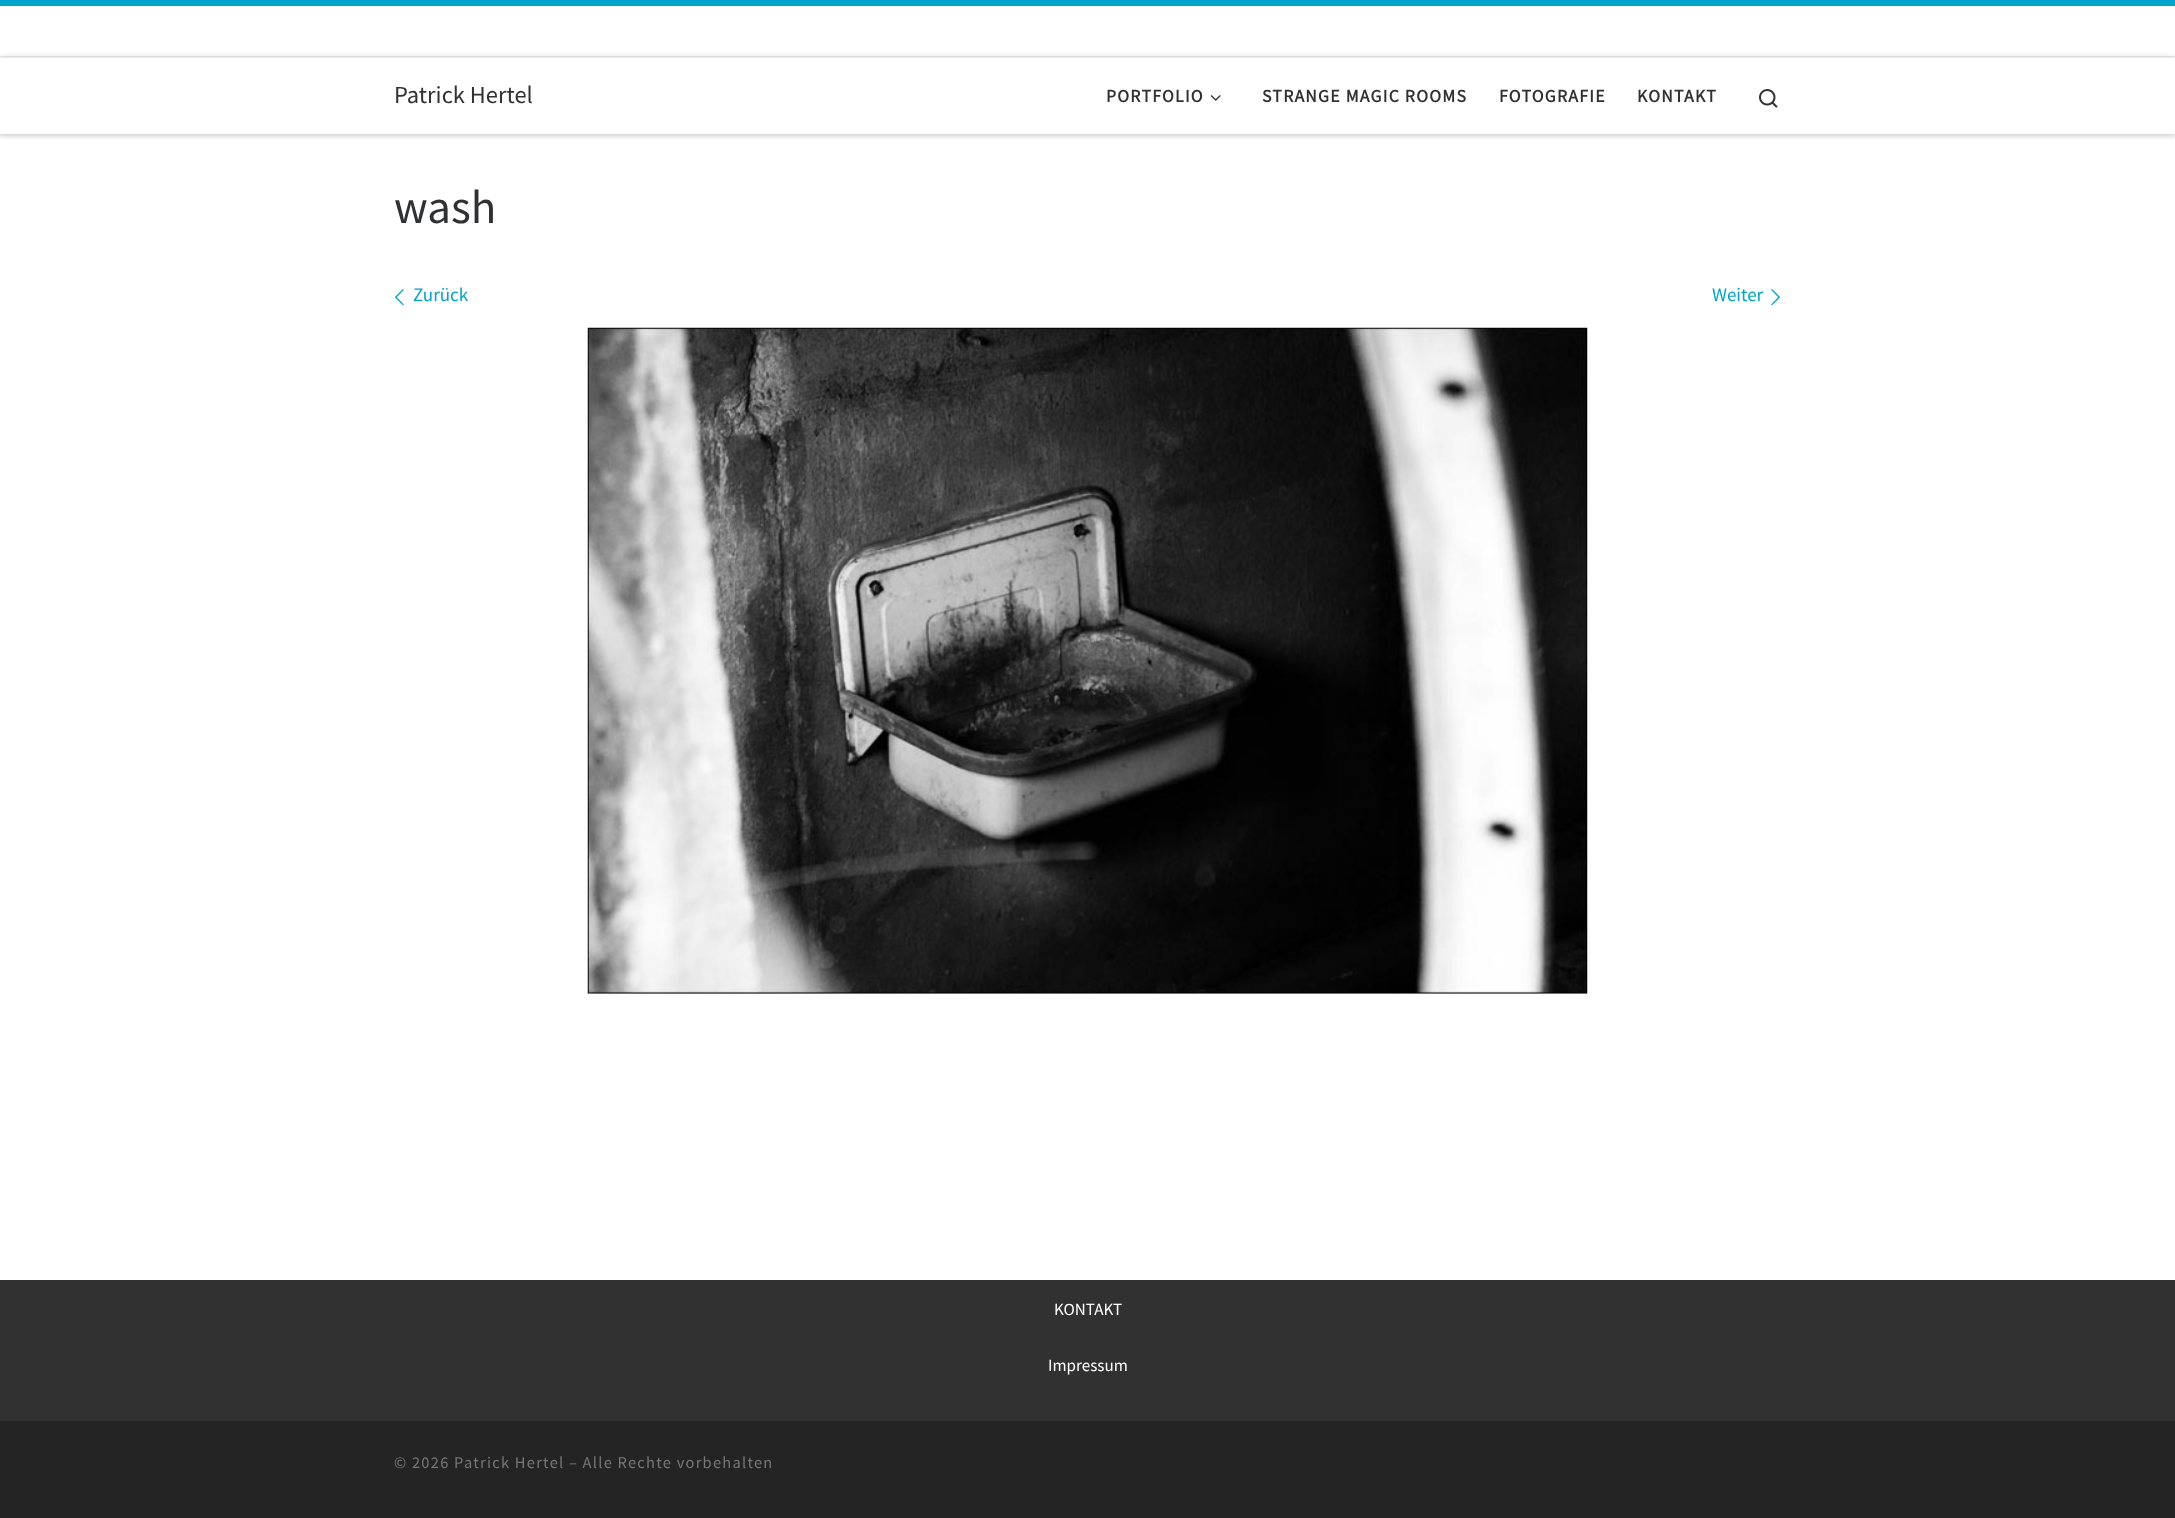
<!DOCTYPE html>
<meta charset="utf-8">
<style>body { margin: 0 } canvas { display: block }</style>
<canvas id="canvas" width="2175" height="1518"></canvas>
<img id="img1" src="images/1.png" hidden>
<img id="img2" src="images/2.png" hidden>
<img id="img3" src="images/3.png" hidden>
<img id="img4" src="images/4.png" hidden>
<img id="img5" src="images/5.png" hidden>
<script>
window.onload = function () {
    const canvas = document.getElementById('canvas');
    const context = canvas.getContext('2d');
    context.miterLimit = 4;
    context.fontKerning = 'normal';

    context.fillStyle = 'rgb(255, 255, 255)';
    context.fillRect(0, 0, 2175, 1518);
    context.save();
    context.beginPath();
    context.rect(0, 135, 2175, 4);
    context.clip();
    context.fillStyle = 'rgba(102, 102, 102, 0.08)';
    context.filter = 'blur(1px)';
    context.beginPath();
    context.rect(0, 3, 2175, 135);
    context.fill();
    context.filter = 'none';
    context.restore();
    context.fillStyle = 'rgb(0, 163, 200)';
    context.fillRect(0, 0, 2175, 6);
    context.fillStyle = 'rgb(236, 236, 236)';
    context.fillRect(0, 56, 2175, 1);
    context.fillStyle = 'rgb(239, 239, 239)';
    context.fillRect(0, 134, 2175, 1);
    context.fillStyle = 'rgba(0, 0, 0, 0.2)';
    context.filter = 'blur(3px)';
    context.beginPath();
    context.rect(0, 58, 2175, 76);
    context.fill();
    context.filter = 'none';
    context.fillStyle = 'rgb(255, 255, 255)';
    context.fillRect(0, 58, 2175, 76);
    context.drawImage(document.getElementById('img1'), 1210, 95, 11, 6);
    context.drawImage(document.getElementById('img2'), 1759, 89, 19, 19);
    context.drawImage(document.getElementById('img3'), 395, 289, 9, 17);
    context.drawImage(document.getElementById('img4'), 1771, 289, 9, 17);
    context.drawImage(document.getElementById('img5'), 587, 327, 1001, 667);
    context.fillStyle = 'rgb(49, 49, 49)';
    context.fillRect(0, 1280, 2175, 141);
    context.fillStyle = 'rgb(36, 36, 36)';
    context.fillRect(0, 1421, 2175, 97);
    context.font = '24.5px Source Sans Pro';
    context.fillStyle = 'rgb(48, 49, 51)';
    context.fillText('Patrick Hertel', 394, 103);
    context.letterSpacing = '1.25px';
    context.font = 'bold 17.75px Source Sans Pro';
    context.fillText('PORTFOLIO', 1106, 102);
    context.fillText('STRANGE MAGIC ROOMS', 1262, 102);
    context.fillText('FOTOGRAFIE', 1499, 102);
    context.fillText('KONTAKT', 1637, 102);
    context.letterSpacing = '0px';
    context.font = '47px Source Sans Pro';
    context.fillText('wash', 394, 223);
    context.font = '19px Source Sans Pro';
    context.fillStyle = 'rgb(0, 163, 200)';
    context.fillText('Zurück', 413, 301);
    context.fillText('Weiter', 1712, 301);
    context.font = '17px Source Sans Pro';
    context.fillStyle = 'rgb(255, 255, 255)';
    context.fillText('KONTAKT', 1054, 1315);
    context.fillText('Impressum', 1048, 1371);
    context.letterSpacing = '1.25px';
    context.font = '16.4px Source Sans Pro';
    context.fillStyle = 'rgb(119, 119, 119)';
    context.fillText('© 2026 Patrick Hertel – Alle Rechte vorbehalten', 394, 1468);
};
</script>
